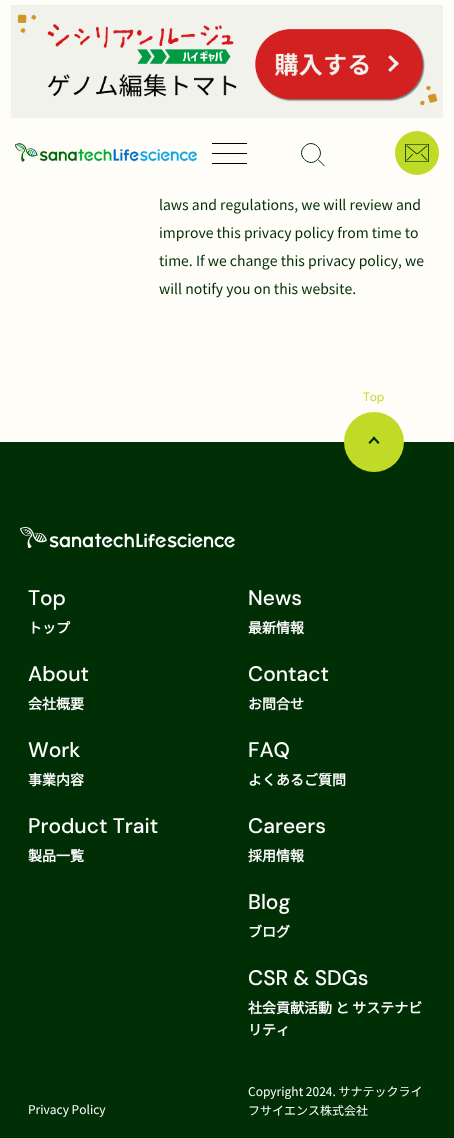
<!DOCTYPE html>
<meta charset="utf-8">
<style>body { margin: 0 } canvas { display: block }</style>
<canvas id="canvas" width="454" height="1138"></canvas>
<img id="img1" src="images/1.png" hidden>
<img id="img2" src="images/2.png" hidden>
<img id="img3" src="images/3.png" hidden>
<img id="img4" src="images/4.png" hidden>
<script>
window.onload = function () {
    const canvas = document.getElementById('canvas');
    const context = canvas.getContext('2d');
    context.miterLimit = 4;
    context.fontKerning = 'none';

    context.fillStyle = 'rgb(255, 253, 248)';
    context.fillRect(0, 0, 454, 1138);
    context.drawImage(document.getElementById('img1'), 11, 5, 432, 113);
    context.drawImage(document.getElementById('img2'), 15, 143, 182, 19);
    context.fillStyle = 'rgb(0, 0, 0)';
    context.fillRect(212, 143, 35, 1);
    context.fillRect(212, 153, 35, 1);
    context.fillRect(212, 163, 35, 1);
    context.beginPath();
    context.moveTo(304.5, 146.5);
    context.bezierCurveTo(313, 137.5, 326.5, 151, 317.5, 159.5);
    context.bezierCurveTo(309, 168.5, 295.5, 155, 304.5, 146.5);
    context.closePath();
    context.moveTo(318, 159.5);
    context.lineTo(324.5, 166);
    context.strokeStyle = 'rgb(0, 46, 5)';
    context.stroke();
    context.fillStyle = 'rgb(191, 219, 39)';
    context.beginPath();
    context.arc(417, 153, 22, 0, 2 * Math.PI);
    context.fill();
    context.drawImage(document.getElementById('img3'), 405, 144, 24, 18);
    context.fillStyle = 'rgb(0, 46, 5)';
    context.fillRect(0, 442, 454, 696);
    context.fillStyle = 'rgb(191, 219, 39)';
    context.beginPath();
    context.arc(374, 442, 30, 0, 2 * Math.PI);
    context.fill();
    context.fillStyle = 'rgb(0, 46, 5)';
    context.beginPath();
    context.moveTo(374, 436.5);
    context.lineTo(379.5, 442.5);
    context.lineTo(378, 444);
    context.lineTo(372.5, 438);
    context.closePath();
    context.fill();
    context.beginPath();
    context.moveTo(374, 436.5);
    context.lineTo(375.5, 438);
    context.lineTo(370, 444);
    context.lineTo(368.5, 442.5);
    context.closePath();
    context.fill();
    context.drawImage(document.getElementById('img4'), 20, 527, 215, 21);
    context.font = '100 14px Noto Sans JP';
    context.fillText('laws and regulations, we will review and', 159, 210);
    context.fillText('improve this privacy policy from time to', 159, 238);
    context.fillText('time. If we change this privacy policy, we', 159, 266);
    context.fillText('will notify you on this website.', 159, 294);
    context.font = '12px DM Sans';
    context.fillStyle = 'rgb(191, 219, 39)';
    context.fillText('Top', 363, 401);
    context.font = '500 21px DM Sans';
    context.fillStyle = 'rgb(255, 255, 255)';
    context.fillText('Top', 28, 605);
    context.font = 'bold 14px Noto Sans JP';
    context.fillText('トップ', 28, 633);
    context.font = '500 21px DM Sans';
    context.fillText('About', 28, 681);
    context.font = 'bold 14px Noto Sans JP';
    context.fillText('会社概要', 28, 709);
    context.font = '500 21px DM Sans';
    context.fillText('Work', 28, 757);
    context.font = 'bold 14px Noto Sans JP';
    context.fillText('事業内容', 28, 785);
    context.font = '500 21px DM Sans';
    context.fillText('Product Trait', 28, 833);
    context.font = 'bold 14px Noto Sans JP';
    context.fillText('製品一覧', 28, 861);
    context.font = '100 12px Noto Sans JP';
    context.fillText('Privacy Policy', 28, 1114);
    context.font = '500 21px DM Sans';
    context.fillText('News', 248, 605);
    context.font = 'bold 14px Noto Sans JP';
    context.fillText('最新情報', 248, 633);
    context.font = '500 21px DM Sans';
    context.fillText('Contact', 248, 681);
    context.font = 'bold 14px Noto Sans JP';
    context.fillText('お問合せ', 248, 709);
    context.font = '500 21px DM Sans';
    context.fillText('FAQ', 248, 757);
    context.font = 'bold 14px Noto Sans JP';
    context.fillText('よくあるご質問', 248, 785);
    context.font = '500 21px DM Sans';
    context.fillText('Careers', 248, 833);
    context.font = 'bold 14px Noto Sans JP';
    context.fillText('採用情報', 248, 861);
    context.font = '500 21px DM Sans';
    context.fillText('Blog', 248, 909);
    context.font = 'bold 14px Noto Sans JP';
    context.fillText('ブログ', 248, 937);
    context.font = '500 21px DM Sans';
    context.fillText('CSR & SDGs', 248, 985);
    context.font = 'bold 14px Noto Sans JP';
    context.fillText('社会貢献活動 と サステナビ', 248, 1013);
    context.fillText('リティ', 248, 1035);
    context.font = '100 12px Noto Sans JP';
    context.fillText('Copyright 2024. サナテックライ', 248, 1096);
    context.fillText('フサイエンス株式会社', 248, 1115);
};
</script>
